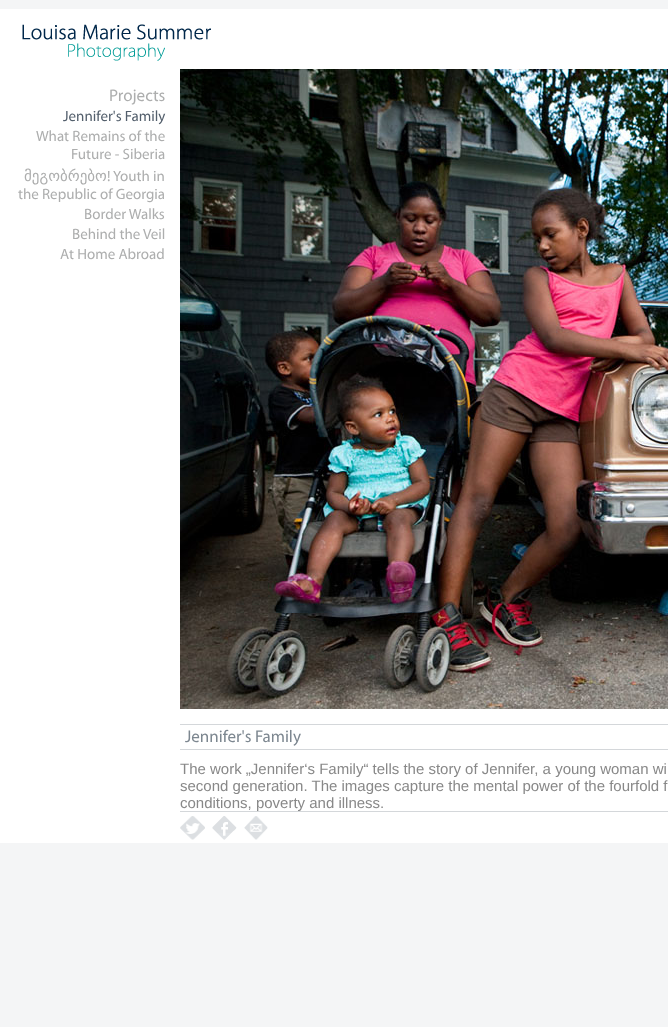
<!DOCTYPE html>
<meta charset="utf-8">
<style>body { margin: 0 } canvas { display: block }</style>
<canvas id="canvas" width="668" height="1027"></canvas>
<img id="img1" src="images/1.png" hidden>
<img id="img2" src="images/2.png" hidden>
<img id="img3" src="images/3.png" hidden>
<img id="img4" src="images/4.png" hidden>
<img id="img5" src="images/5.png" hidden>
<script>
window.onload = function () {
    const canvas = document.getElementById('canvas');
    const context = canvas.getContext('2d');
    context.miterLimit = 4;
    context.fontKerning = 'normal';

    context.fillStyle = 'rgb(244, 245, 246)';
    context.fillRect(0, 0, 668, 1027);
    context.fillStyle = 'rgb(255, 255, 255)';
    context.fillRect(0, 9, 668, 834);
    context.drawImage(document.getElementById('img1'), 22, 24, 189, 37);
    context.drawImage(document.getElementById('img2'), 180, 69, 488, 640);
    context.fillStyle = 'rgb(212, 215, 218)';
    context.fillRect(180, 724, 488, 1);
    context.fillRect(180, 749, 488, 1);
    context.fillRect(180, 811, 488, 1);
    context.drawImage(document.getElementById('img3'), 180, 816, 25, 24);
    context.drawImage(document.getElementById('img4'), 212, 816, 25, 24);
    context.drawImage(document.getElementById('img5'), 244, 816, 24, 24);
    context.font = '17px Myriad';
    context.fillStyle = 'rgb(173, 174, 174)';
    context.fillText('Projects', 109, 101);
    context.font = '15px Myriad';
    context.fillStyle = 'rgb(83, 95, 108)';
    context.fillText('Jennifer\'s Family', 63, 121);
    context.fillStyle = 'rgb(173, 174, 174)';
    context.fillText('What Remains of the', 36, 141);
    context.fillText('Future - Siberia', 71, 159);
    context.font = '15px DejaVu Sans';
    context.fillText('მეგობრებო', 24, 181);
    context.font = '15px Myriad';
    context.fillText('! Youth in', 107, 181);
    context.fillText('the Republic of Georgia', 18, 199);
    context.fillText('Border Walks', 84, 219);
    context.fillText('Behind the Veil', 72, 239);
    context.fillText('At Home Abroad', 60, 259);
    context.font = '17px Myriad';
    context.fillStyle = 'rgb(125, 135, 144)';
    context.fillText('Jennifer\'s Family', 185, 742);
    context.font = '15px Liberation Sans';
    context.fillStyle = 'rgb(136, 136, 136)';
    context.fillText('The work „Jennifer‘s Family“ tells the story of Jennifer, a young woman wi', 180, 774);
    context.fillText('second generation. The images capture the mental power of the fourfold f', 180, 791);
    context.fillText('conditions, poverty and illness.', 180, 808);
};
</script>
